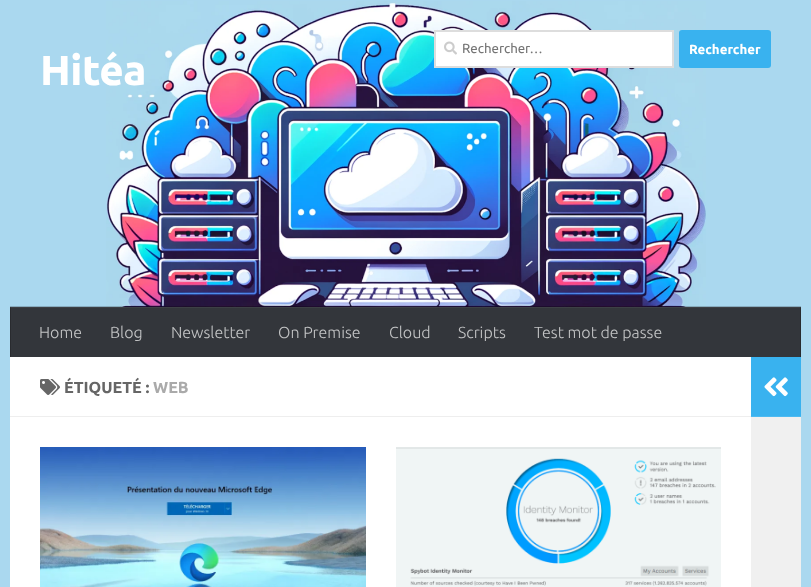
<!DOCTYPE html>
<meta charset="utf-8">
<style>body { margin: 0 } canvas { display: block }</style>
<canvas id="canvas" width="811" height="587"></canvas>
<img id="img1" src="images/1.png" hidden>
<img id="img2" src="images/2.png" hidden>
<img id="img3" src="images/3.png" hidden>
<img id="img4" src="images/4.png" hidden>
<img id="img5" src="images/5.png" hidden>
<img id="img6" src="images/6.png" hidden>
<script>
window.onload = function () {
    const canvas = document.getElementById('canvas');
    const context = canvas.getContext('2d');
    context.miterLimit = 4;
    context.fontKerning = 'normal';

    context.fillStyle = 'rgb(170, 216, 239)';
    context.fillRect(0, 0, 811, 587);
    context.drawImage(document.getElementById('img1'), 106, 1, 600, 306);
    context.fillStyle = 'rgb(255, 255, 255)';
    context.beginPath();
    context.rect(435, 31, 238, 36);
    context.fill();
    context.strokeStyle = 'rgb(221, 221, 221)';
    context.lineWidth = 2;
    context.stroke();
    context.drawImage(document.getElementById('img2'), 444, 41, 13, 14);
    context.fillStyle = 'rgb(57, 178, 239)';
    context.beginPath();
    context.roundRect(679, 30, 92, 38, 3);
    context.fill();
    context.fillStyle = 'rgba(0, 0, 0, 0.2)';
    context.fillRect(10, 306, 791, 1);
    context.fillStyle = 'rgb(51, 54, 59)';
    context.fillRect(11, 308, 789, 49);
    context.fillStyle = 'rgb(61, 64, 69)';
    context.fillRect(10, 307, 791, 1);
    context.fillStyle = 'rgb(41, 43, 47)';
    context.fillRect(800, 307, 1, 50);
    context.fillStyle = 'rgb(52, 54, 57)';
    context.fillRect(800, 307, 1, 1);
    context.fillStyle = 'rgb(41, 43, 47)';
    context.fillRect(10, 307, 1, 50);
    context.fillStyle = 'rgb(52, 54, 57)';
    context.fillRect(10, 307, 1, 1);
    context.fillStyle = 'rgb(255, 255, 255)';
    context.fillRect(10, 357, 741, 230);
    context.fillStyle = 'rgb(238, 238, 238)';
    context.fillRect(10, 416, 741, 1);
    context.drawImage(document.getElementById('img3'), 40, 379, 20, 16);
    context.drawImage(document.getElementById('img4'), 40, 447, 326, 140);
    context.drawImage(document.getElementById('img5'), 396, 447, 325, 140);
    context.fillStyle = 'rgb(57, 178, 239)';
    context.fillRect(751, 357, 50, 59);
    context.fillStyle = 'rgb(77, 186, 241)';
    context.fillRect(751, 416, 50, 1);
    context.drawImage(document.getElementById('img6'), 764, 377, 24, 20);
    context.fillStyle = 'rgb(240, 240, 240)';
    context.fillRect(751, 417, 50, 170);
    context.font = '13.25px Ubuntu';
    context.fillStyle = 'rgb(117, 117, 117)';
    context.fillText('Rechercher…', 462, 53);
    context.font = 'bold 13.25px Ubuntu';
    context.fillStyle = 'rgb(255, 255, 255)';
    context.fillText('Rechercher', 689, 54);
    context.letterSpacing = '-0.5px';
    context.font = 'bold 42px Ubuntu';
    context.fillText('Hitéa', 40, 85);
    context.letterSpacing = '0px';
    context.font = '300 16px Ubuntu';
    context.fillStyle = 'rgb(194, 195, 196)';
    context.fillText('Home', 39, 338);
    context.fillText('Blog', 110, 338);
    context.fillText('Newsletter', 171, 338);
    context.fillText('On Premise', 278, 338);
    context.fillText('Cloud', 389, 338);
    context.fillText('Scripts', 458, 338);
    context.fillText('Test mot de passe', 534, 338);
    context.font = 'bold 16px Ubuntu';
    context.fillStyle = 'rgb(102, 102, 102)';
    context.fillText('ÉTIQUETÉ :', 64, 393);
    context.fillStyle = 'rgb(170, 170, 170)';
    context.fillText('WEB', 153, 393);
};
</script>
